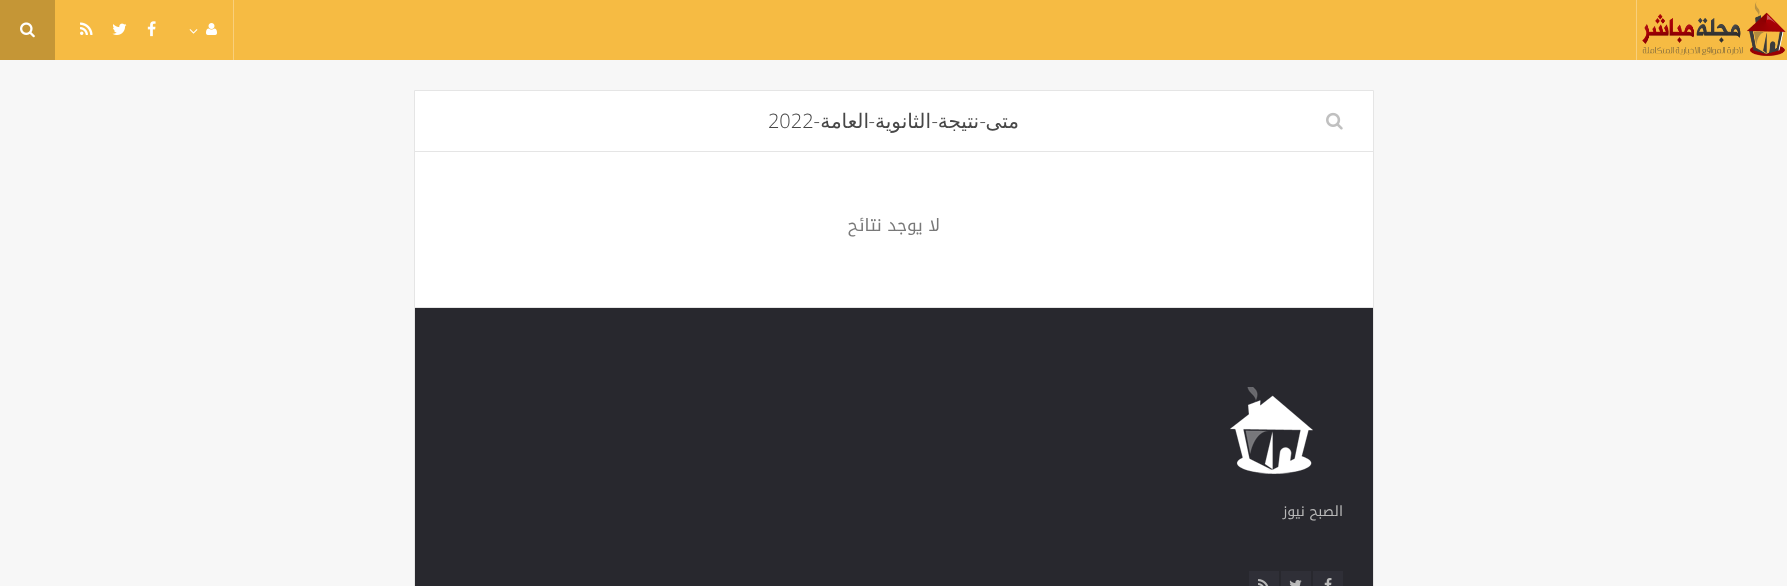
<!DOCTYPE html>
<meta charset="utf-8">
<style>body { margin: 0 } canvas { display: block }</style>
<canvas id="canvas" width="1787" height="586"></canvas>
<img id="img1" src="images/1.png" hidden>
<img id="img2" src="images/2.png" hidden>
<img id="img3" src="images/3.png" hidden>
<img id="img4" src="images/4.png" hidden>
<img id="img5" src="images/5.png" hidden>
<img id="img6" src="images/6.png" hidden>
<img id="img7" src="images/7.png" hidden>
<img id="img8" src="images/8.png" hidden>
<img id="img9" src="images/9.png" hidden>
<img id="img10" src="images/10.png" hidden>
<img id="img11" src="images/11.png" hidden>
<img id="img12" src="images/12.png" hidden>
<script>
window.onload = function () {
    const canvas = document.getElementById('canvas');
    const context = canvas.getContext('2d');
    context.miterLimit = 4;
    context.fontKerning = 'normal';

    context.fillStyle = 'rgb(247, 247, 247)';
    context.fillRect(0, 0, 1787, 586);
    context.fillStyle = 'rgb(246, 187, 67)';
    context.fillRect(55, 0, 1732, 60);
    context.fillStyle = 'rgb(249, 207, 123)';
    context.fillRect(1636, 0, 1, 60);
    context.drawImage(document.getElementById('img1'), 1642, 1, 144, 55);
    context.fillRect(233, 0, 1, 60);
    context.drawImage(document.getElementById('img2'), 206, 23, 11, 12);
    context.drawImage(document.getElementById('img3'), 189, 29, 9, 5);
    context.drawImage(document.getElementById('img4'), 147, 21, 9, 16);
    context.drawImage(document.getElementById('img5'), 112, 23, 15, 12);
    context.drawImage(document.getElementById('img6'), 80, 22, 13, 13);
    context.fillStyle = 'rgb(197, 150, 54)';
    context.fillRect(0, 0, 55, 60);
    context.drawImage(document.getElementById('img7'), 20, 22, 15, 16);
    context.fillStyle = 'rgb(255, 255, 255)';
    context.beginPath();
    context.rect(414.5, 90.5, 959, 217);
    context.fill();
    context.strokeStyle = 'rgb(229, 229, 229)';
    context.stroke();
    context.fillStyle = 'rgb(229, 229, 229)';
    context.fillRect(415, 151, 958, 1);
    context.drawImage(document.getElementById('img8'), 1326, 112, 17, 18);
    context.fillStyle = 'rgb(40, 40, 46)';
    context.fillRect(415, 308, 958, 278);
    context.fillStyle = 'rgb(229, 229, 229)';
    context.fillRect(1373, 308, 1, 278);
    context.fillRect(414, 308, 1, 278);
    context.drawImage(document.getElementById('img9'), 1230, 387, 83, 87);
    context.fillStyle = 'rgb(47, 47, 55)';
    context.fillRect(1313, 571, 30, 15);
    context.drawImage(document.getElementById('img10'), 1324, 578, 8, 8);
    context.fillRect(1281, 571, 30, 15);
    context.drawImage(document.getElementById('img11'), 1289, 580, 13, 6);
    context.fillRect(1249, 571, 30, 15);
    context.drawImage(document.getElementById('img12'), 1258, 579, 11, 7);
    context.direction = 'rtl';
    context.font = '20px DejaVu Sans';
    context.fillStyle = 'rgb(71, 71, 71)';
    context.fillText('متى', 1019, 128);
    context.font = '300 20px Open Sans';
    context.fillText('-', 986, 128);
    context.font = '20px DejaVu Sans';
    context.fillText('نتيجة', 979, 128);
    context.font = '300 20px Open Sans';
    context.fillText('-', 938, 128);
    context.font = '20px DejaVu Sans';
    context.fillText('الثانوية', 931, 128);
    context.font = '300 20px Open Sans';
    context.fillText('-', 875, 128);
    context.font = '20px DejaVu Sans';
    context.fillText('العامة', 869, 128);
    context.font = '300 20px Open Sans';
    context.fillText('-2022', 820, 128);
    context.font = '17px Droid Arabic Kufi';
    context.fillStyle = 'rgb(120, 120, 120)';
    context.fillText('لا يوجد نتائح', 940, 231);
    context.font = '14px Droid Arabic Kufi';
    context.fillStyle = 'rgb(185, 185, 185)';
    context.fillText('الصبح نيوز', 1343, 516);
};
</script>
